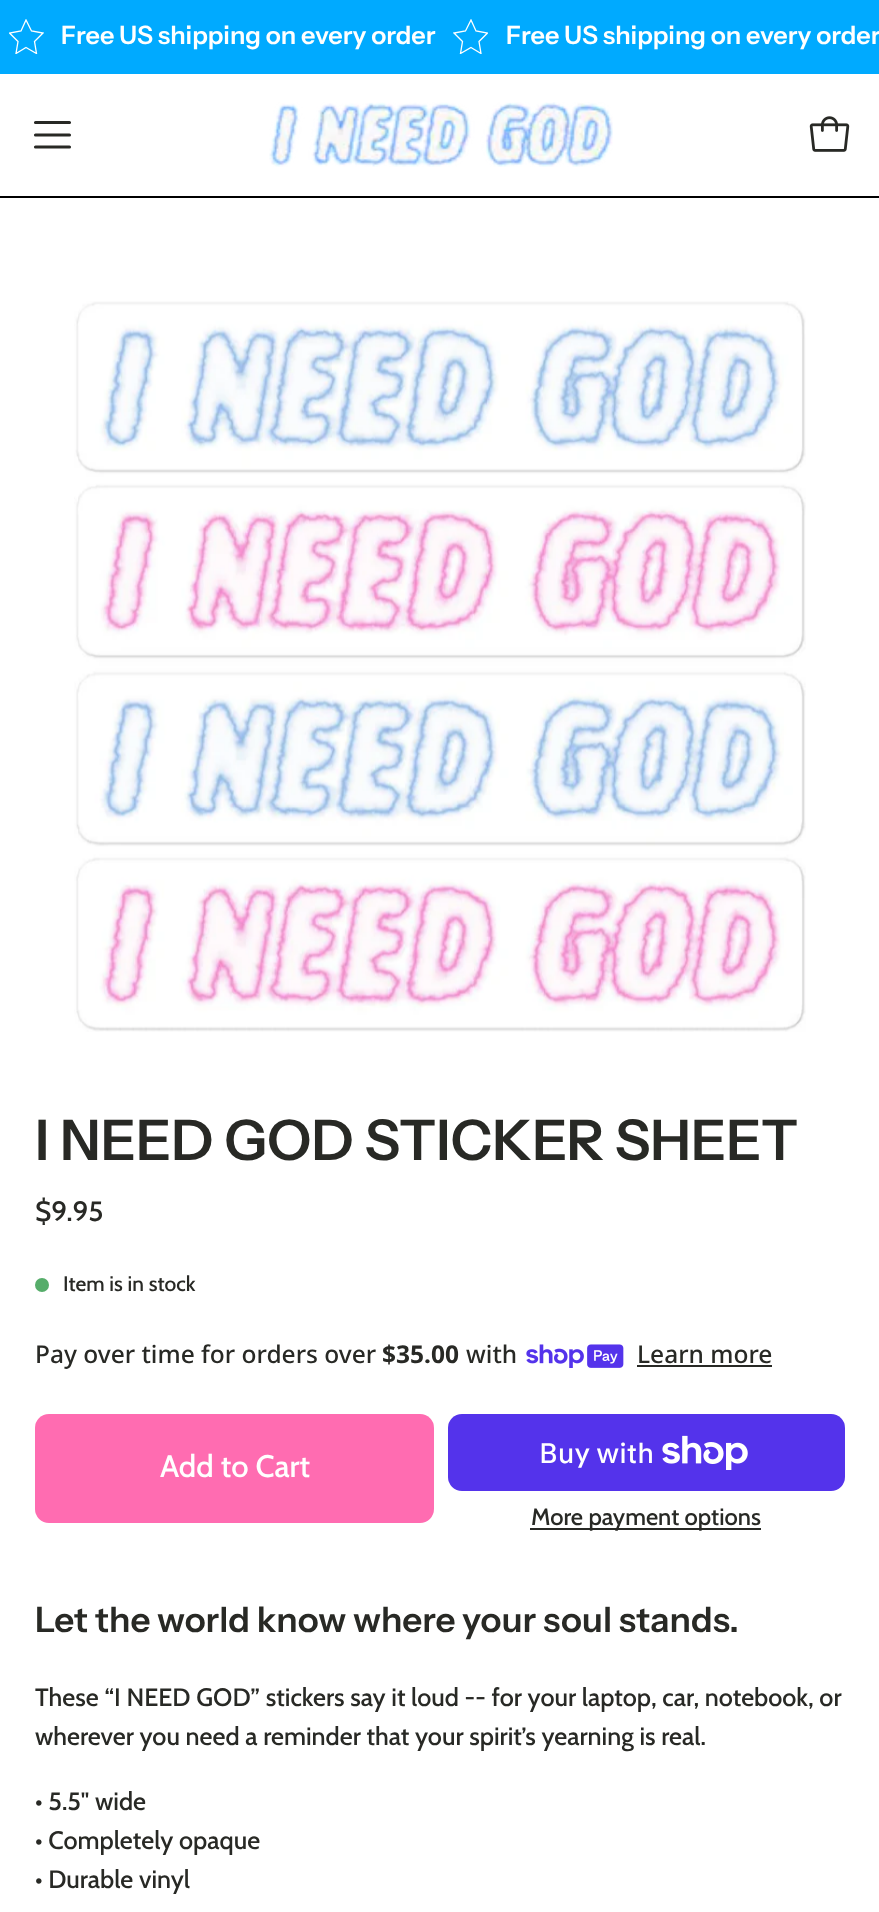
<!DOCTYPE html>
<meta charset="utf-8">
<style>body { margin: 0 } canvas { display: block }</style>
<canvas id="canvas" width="879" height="1912"></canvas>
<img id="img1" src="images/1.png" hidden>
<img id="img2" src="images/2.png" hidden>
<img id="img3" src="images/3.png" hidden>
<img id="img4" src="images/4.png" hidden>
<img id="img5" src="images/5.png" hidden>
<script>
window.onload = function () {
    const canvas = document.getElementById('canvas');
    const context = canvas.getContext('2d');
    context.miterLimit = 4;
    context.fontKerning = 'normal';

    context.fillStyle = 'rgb(255, 255, 255)';
    context.fillRect(0, 0, 879, 1912);
    context.fillStyle = 'rgb(0, 170, 255)';
    context.fillRect(0, 0, 879, 74);
    context.save();
    context.beginPath();
    context.rect(9, 19, 35, 35);
    context.clip();
    context.beginPath();
    context.moveTo(26, 47.5);
    context.lineTo(36.5, 53.5);
    context.lineTo(34.5, 41.5);
    context.lineTo(43, 33);
    context.lineTo(31.5, 31);
    context.lineTo(26, 20);
    context.lineTo(21, 31);
    context.lineTo(9.5, 33);
    context.lineTo(18, 41.5);
    context.lineTo(16, 53.5);
    context.closePath();
    context.strokeStyle = 'rgb(255, 255, 255)';
    context.lineWidth = 1.3;
    context.stroke();
    context.restore();
    context.save();
    context.beginPath();
    context.rect(453, 19, 35, 35);
    context.clip();
    context.beginPath();
    context.moveTo(471, 47.5);
    context.lineTo(481, 53.5);
    context.lineTo(479, 41.5);
    context.lineTo(487.5, 33);
    context.lineTo(476, 31);
    context.lineTo(471, 20);
    context.lineTo(465.5, 31);
    context.lineTo(454, 33);
    context.lineTo(462.5, 41.5);
    context.lineTo(460.5, 53.5);
    context.closePath();
    context.strokeStyle = 'rgb(255, 255, 255)';
    context.lineWidth = 1.3;
    context.stroke();
    context.restore();
    context.fillStyle = 'rgb(0, 0, 0)';
    context.fillRect(0, 196, 879, 2);
    context.beginPath();
    context.moveTo(35.5, 135);
    context.lineTo(69.5, 135);
    context.moveTo(35.5, 122.5);
    context.lineTo(69.5, 122.5);
    context.moveTo(35.5, 147);
    context.lineTo(69.5, 147);
    context.strokeStyle = 'rgb(40, 41, 37)';
    context.lineWidth = 3.1;
    context.lineCap = 'round';
    context.lineJoin = 'round';
    context.stroke();
    context.drawImage(document.getElementById('img1'), 269, 102, 344, 65);
    context.drawImage(document.getElementById('img2'), 809, 116, 41, 36);
    context.drawImage(document.getElementById('img3'), 74, 301, 732, 731);
    context.fillStyle = 'rgb(86, 173, 106)';
    context.beginPath();
    context.arc(42, 1285, 7, 0, 2 * Math.PI);
    context.fill();
    context.drawImage(document.getElementById('img4'), 526, 1344, 98, 24);
    context.fillStyle = 'rgb(40, 41, 37)';
    context.fillRect(637, 1365, 135, 2);
    context.fillStyle = 'rgb(255, 108, 177)';
    context.beginPath();
    context.roundRect(35, 1414, 399, 109, 14);
    context.fill();
    context.fillStyle = 'rgb(84, 51, 235)';
    context.beginPath();
    context.roundRect(448, 1414, 397, 77, 14);
    context.fill();
    context.drawImage(document.getElementById('img5'), 662, 1435, 86, 35);
    context.fillStyle = 'rgb(40, 41, 37)';
    context.fillRect(530, 1528, 231, 2);
    context.font = '600 25.2px Instrument Sans';
    context.fillStyle = 'rgb(255, 255, 255)';
    context.fillText('Free US shipping on every order', 61, 44);
    context.fillText('Free US shipping on every order', 506, 44);
    context.font = '600 56px Instrument Sans';
    context.fillStyle = 'rgb(40, 41, 37)';
    context.fillText('I NEED GOD STICKER SHEET', 35, 1160);
    context.font = '500 28px Cabin';
    context.fillText('$9.95', 35, 1221);
    context.font = '500 21px Cabin';
    context.fillText('Item is in stock', 63, 1291);
    context.font = '500 24.5px Noto Sans';
    context.fillText('Pay over time for orders over', 35, 1363);
    context.font = 'bold 24.5px Noto Sans';
    context.fillText('$35.00', 382, 1363);
    context.font = '500 24.5px Noto Sans';
    context.fillText('with', 466, 1363);
    context.fillText('Learn more', 637, 1363);
    context.font = '500 31px Cabin';
    context.fillStyle = 'rgb(255, 255, 255)';
    context.fillText('Add to Cart', 160, 1477);
    context.font = '500 28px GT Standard';
    context.fillText('Buy with', 539, 1463);
    context.font = '500 23.75px Cabin';
    context.fillStyle = 'rgb(40, 41, 37)';
    context.fillText('More payment options', 531, 1525);
    context.font = '600 35px Instrument Sans';
    context.fillText('Let the world know where your soul stands.', 35, 1632);
    context.font = '500 25.2px Cabin';
    context.fillText('These “I NEED GOD” stickers say it loud -- for your laptop, car, notebook, or', 35, 1706);
    context.fillText('wherever you need a reminder that your spirit’s yearning is real.', 35, 1745);
    context.fillText('• 5.5" wide', 35, 1810);
    context.fillText('• Completely opaque', 35, 1849);
    context.fillText('• Durable vinyl', 35, 1888);
};
</script>
